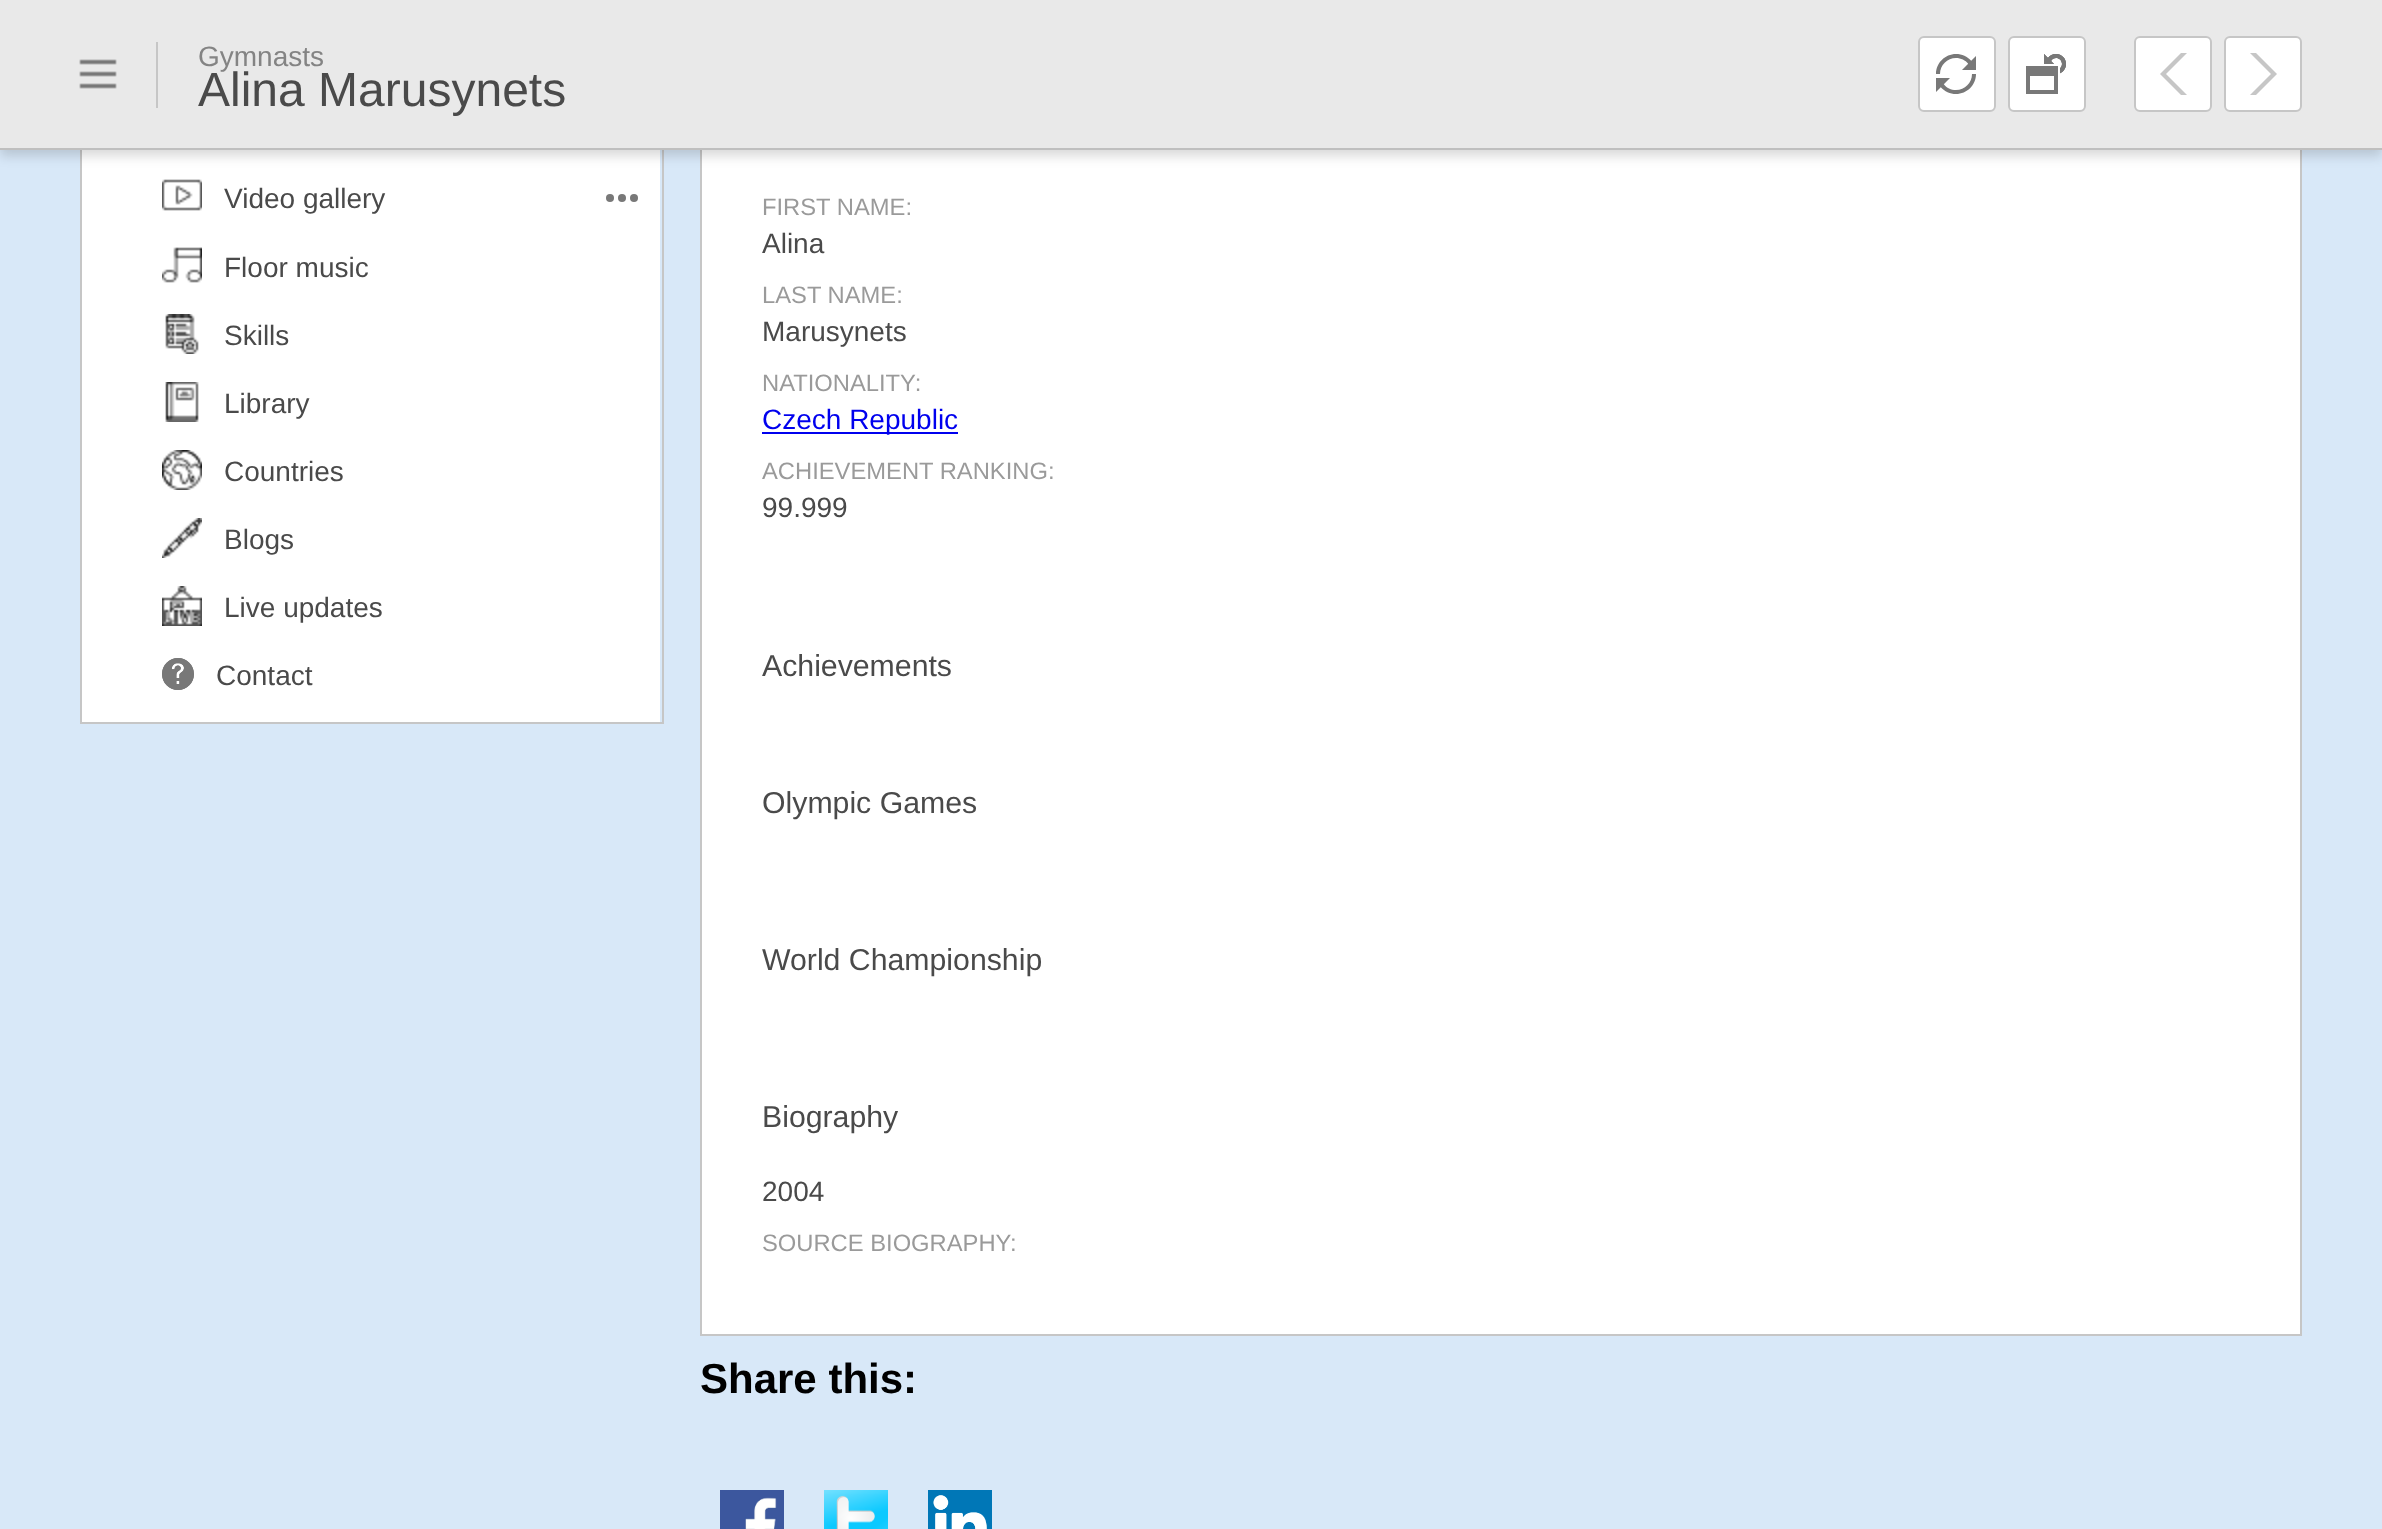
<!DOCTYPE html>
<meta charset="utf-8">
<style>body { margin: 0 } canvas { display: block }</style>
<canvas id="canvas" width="2382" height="1529"></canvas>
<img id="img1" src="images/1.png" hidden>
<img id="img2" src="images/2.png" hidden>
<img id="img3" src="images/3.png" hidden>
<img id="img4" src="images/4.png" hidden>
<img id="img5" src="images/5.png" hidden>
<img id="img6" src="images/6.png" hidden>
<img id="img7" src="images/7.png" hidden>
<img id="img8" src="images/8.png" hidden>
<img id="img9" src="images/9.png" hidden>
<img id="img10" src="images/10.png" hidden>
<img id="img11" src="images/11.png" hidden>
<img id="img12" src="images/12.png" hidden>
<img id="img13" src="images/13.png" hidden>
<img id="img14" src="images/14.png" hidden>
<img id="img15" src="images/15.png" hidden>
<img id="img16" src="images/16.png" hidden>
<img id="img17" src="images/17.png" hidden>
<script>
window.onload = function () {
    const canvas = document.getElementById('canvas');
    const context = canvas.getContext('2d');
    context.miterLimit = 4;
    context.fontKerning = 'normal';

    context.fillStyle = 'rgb(216, 232, 248)';
    context.fillRect(0, 0, 2382, 1529);
    context.fillStyle = 'rgb(255, 255, 255)';
    context.fillRect(702, 150, 1598, 1184);
    context.fillStyle = 'rgb(198, 198, 198)';
    context.fillRect(2300, 150, 2, 1186);
    context.fillRect(700, 1334, 1602, 2);
    context.fillRect(700, 150, 2, 1186);
    context.fillStyle = 'rgb(255, 255, 255)';
    context.fillRect(82, 150, 578, 572);
    context.strokeStyle = 'rgb(198, 198, 198)';
    context.lineWidth = 2;
    context.strokeRect(81, -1, 582, 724);
    context.fillStyle = 'rgba(0, 0, 0, 0.15)';
    context.filter = 'blur(6px)';
    context.beginPath();
    context.rect(0, 6, 2382, 150);
    context.fill();
    context.filter = 'none';
    context.fillStyle = 'rgb(233, 233, 233)';
    context.fillRect(0, 0, 2382, 148);
    context.fillStyle = 'rgb(191, 191, 191)';
    context.fillRect(0, 148, 2382, 2);
    context.drawImage(document.getElementById('img1'), 79, 59, 38, 30);
    context.fillStyle = 'rgb(198, 198, 198)';
    context.fillRect(156, 42, 2, 66);
    context.fillStyle = 'rgb(255, 255, 255)';
    context.beginPath();
    context.roundRect(1919, 37, 76, 74, 5);
    context.fill();
    context.stroke();
    context.drawImage(document.getElementById('img2'), 1936, 54, 40, 40);
    context.beginPath();
    context.roundRect(2009, 37, 76, 74, 5);
    context.fill();
    context.stroke();
    context.drawImage(document.getElementById('img3'), 2026, 54, 40, 40);
    context.beginPath();
    context.roundRect(2135, 37, 76, 74, 5);
    context.fill();
    context.stroke();
    context.drawImage(document.getElementById('img4'), 2160, 53, 27, 42);
    context.beginPath();
    context.roundRect(2225, 37, 76, 74, 5);
    context.fill();
    context.stroke();
    context.drawImage(document.getElementById('img5'), 2250, 53, 27, 42);
    context.fillStyle = 'rgb(0, 0, 238)';
    context.fillRect(762, 432, 196, 2);
    context.drawImage(document.getElementById('img6'), 720, 1490, 64, 39);
    context.drawImage(document.getElementById('img7'), 824, 1490, 64, 39);
    context.drawImage(document.getElementById('img8'), 928, 1490, 64, 39);
    context.drawImage(document.getElementById('img9'), 162, 179, 40, 32);
    context.drawImage(document.getElementById('img10'), 606, 194, 32, 8);
    context.drawImage(document.getElementById('img11'), 162, 247, 40, 36);
    context.drawImage(document.getElementById('img12'), 165, 314, 34, 40);
    context.drawImage(document.getElementById('img13'), 165, 382, 34, 40);
    context.drawImage(document.getElementById('img14'), 162, 450, 40, 40);
    context.drawImage(document.getElementById('img15'), 162, 518, 40, 40);
    context.drawImage(document.getElementById('img16'), 162, 586, 40, 40);
    context.drawImage(document.getElementById('img17'), 162, 658, 32, 32);
    context.font = '28px Liberation Sans';
    context.fillStyle = 'rgb(132, 132, 132)';
    context.fillText('Gymnasts', 198, 66);
    context.font = '48px Liberation Sans';
    context.fillStyle = 'rgb(74, 74, 74)';
    context.fillText('Alina Marusynets', 198, 106);
    context.font = '23.75px Liberation Sans';
    context.fillStyle = 'rgb(154, 154, 154)';
    context.fillText('FIRST NAME:', 762, 215);
    context.font = '28px Liberation Sans';
    context.fillStyle = 'rgb(74, 74, 74)';
    context.fillText('Alina', 762, 253);
    context.font = '23.75px Liberation Sans';
    context.fillStyle = 'rgb(154, 154, 154)';
    context.fillText('LAST NAME:', 762, 303);
    context.font = '28px Liberation Sans';
    context.fillStyle = 'rgb(74, 74, 74)';
    context.fillText('Marusynets', 762, 341);
    context.font = '23.75px Liberation Sans';
    context.fillStyle = 'rgb(154, 154, 154)';
    context.fillText('NATIONALITY:', 762, 391);
    context.font = '28px Liberation Sans';
    context.fillStyle = 'rgb(0, 0, 238)';
    context.fillText('Czech Republic', 762, 429);
    context.font = '23.75px Liberation Sans';
    context.fillStyle = 'rgb(154, 154, 154)';
    context.fillText('ACHIEVEMENT RANKING:', 762, 479);
    context.font = '28px Liberation Sans';
    context.fillStyle = 'rgb(74, 74, 74)';
    context.fillText('99.999', 762, 517);
    context.font = '30.25px Liberation Sans';
    context.fillText('Achievements', 762, 676);
    context.fillText('Olympic Games', 762, 813);
    context.fillText('World Championship', 762, 970);
    context.fillText('Biography', 762, 1127);
    context.font = '28px Liberation Sans';
    context.fillText('2004', 762, 1201);
    context.font = '23.75px Liberation Sans';
    context.fillStyle = 'rgb(154, 154, 154)';
    context.fillText('SOURCE BIOGRAPHY:', 762, 1251);
    context.font = 'bold 42px Liberation Sans';
    context.fillStyle = 'rgb(0, 0, 0)';
    context.fillText('Share this:', 700, 1393);
    context.font = '28px Liberation Sans';
    context.fillStyle = 'rgb(74, 74, 74)';
    context.fillText('Video gallery', 224, 208);
    context.fillText('Floor music', 224, 277);
    context.fillText('Skills', 224, 345);
    context.fillText('Library', 224, 413);
    context.fillText('Countries', 224, 481);
    context.fillText('Blogs', 224, 549);
    context.fillText('Live updates', 224, 617);
    context.fillText('Contact', 216, 685);
};
</script>
